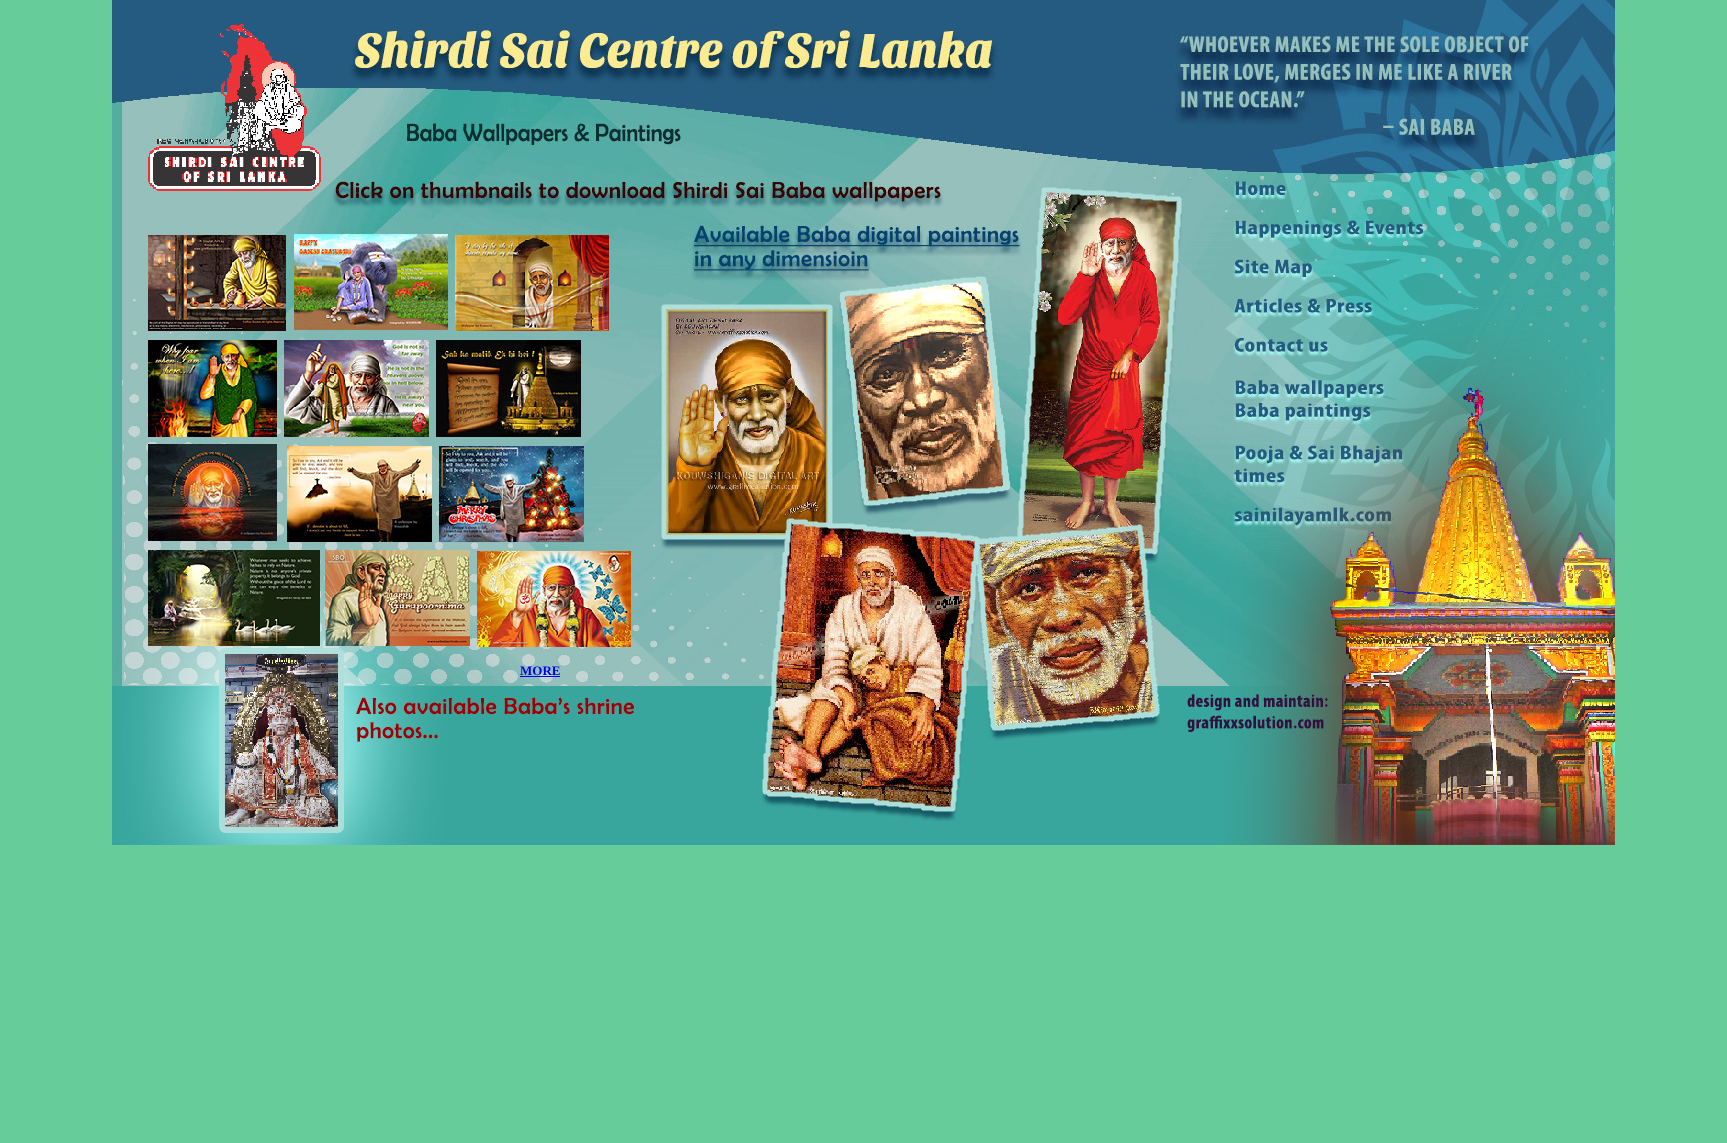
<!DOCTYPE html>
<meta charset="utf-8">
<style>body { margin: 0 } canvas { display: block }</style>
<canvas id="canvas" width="1727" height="1143"></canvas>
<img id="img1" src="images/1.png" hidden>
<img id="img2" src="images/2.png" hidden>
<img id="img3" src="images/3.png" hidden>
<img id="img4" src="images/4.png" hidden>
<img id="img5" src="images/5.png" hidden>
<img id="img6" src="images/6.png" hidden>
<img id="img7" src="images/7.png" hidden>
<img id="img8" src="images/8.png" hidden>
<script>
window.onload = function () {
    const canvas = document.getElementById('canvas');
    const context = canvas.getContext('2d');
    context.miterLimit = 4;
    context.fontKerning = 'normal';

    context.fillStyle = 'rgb(102, 204, 153)';
    context.fillRect(0, 0, 1727, 1143);
    context.drawImage(document.getElementById('img1'), 112, 0, 135, 845);
    context.drawImage(document.getElementById('img2'), 247, 0, 551, 166);
    context.drawImage(document.getElementById('img3'), 798, 0, 642, 166);
    context.drawImage(document.getElementById('img4'), 1440, 0, 175, 686);
    context.drawImage(document.getElementById('img5'), 247, 166, 831, 520);
    context.drawImage(document.getElementById('img6'), 1078, 166, 362, 520);
    context.drawImage(document.getElementById('img7'), 247, 686, 831, 159);
    context.drawImage(document.getElementById('img8'), 1078, 686, 537, 159);
    context.fillStyle = 'rgb(0, 0, 238)';
    context.fillRect(520, 676, 40, 1);
    context.font = 'bold 13px Liberation Serif';
    context.fillText('MORE', 520, 675);
};
</script>
